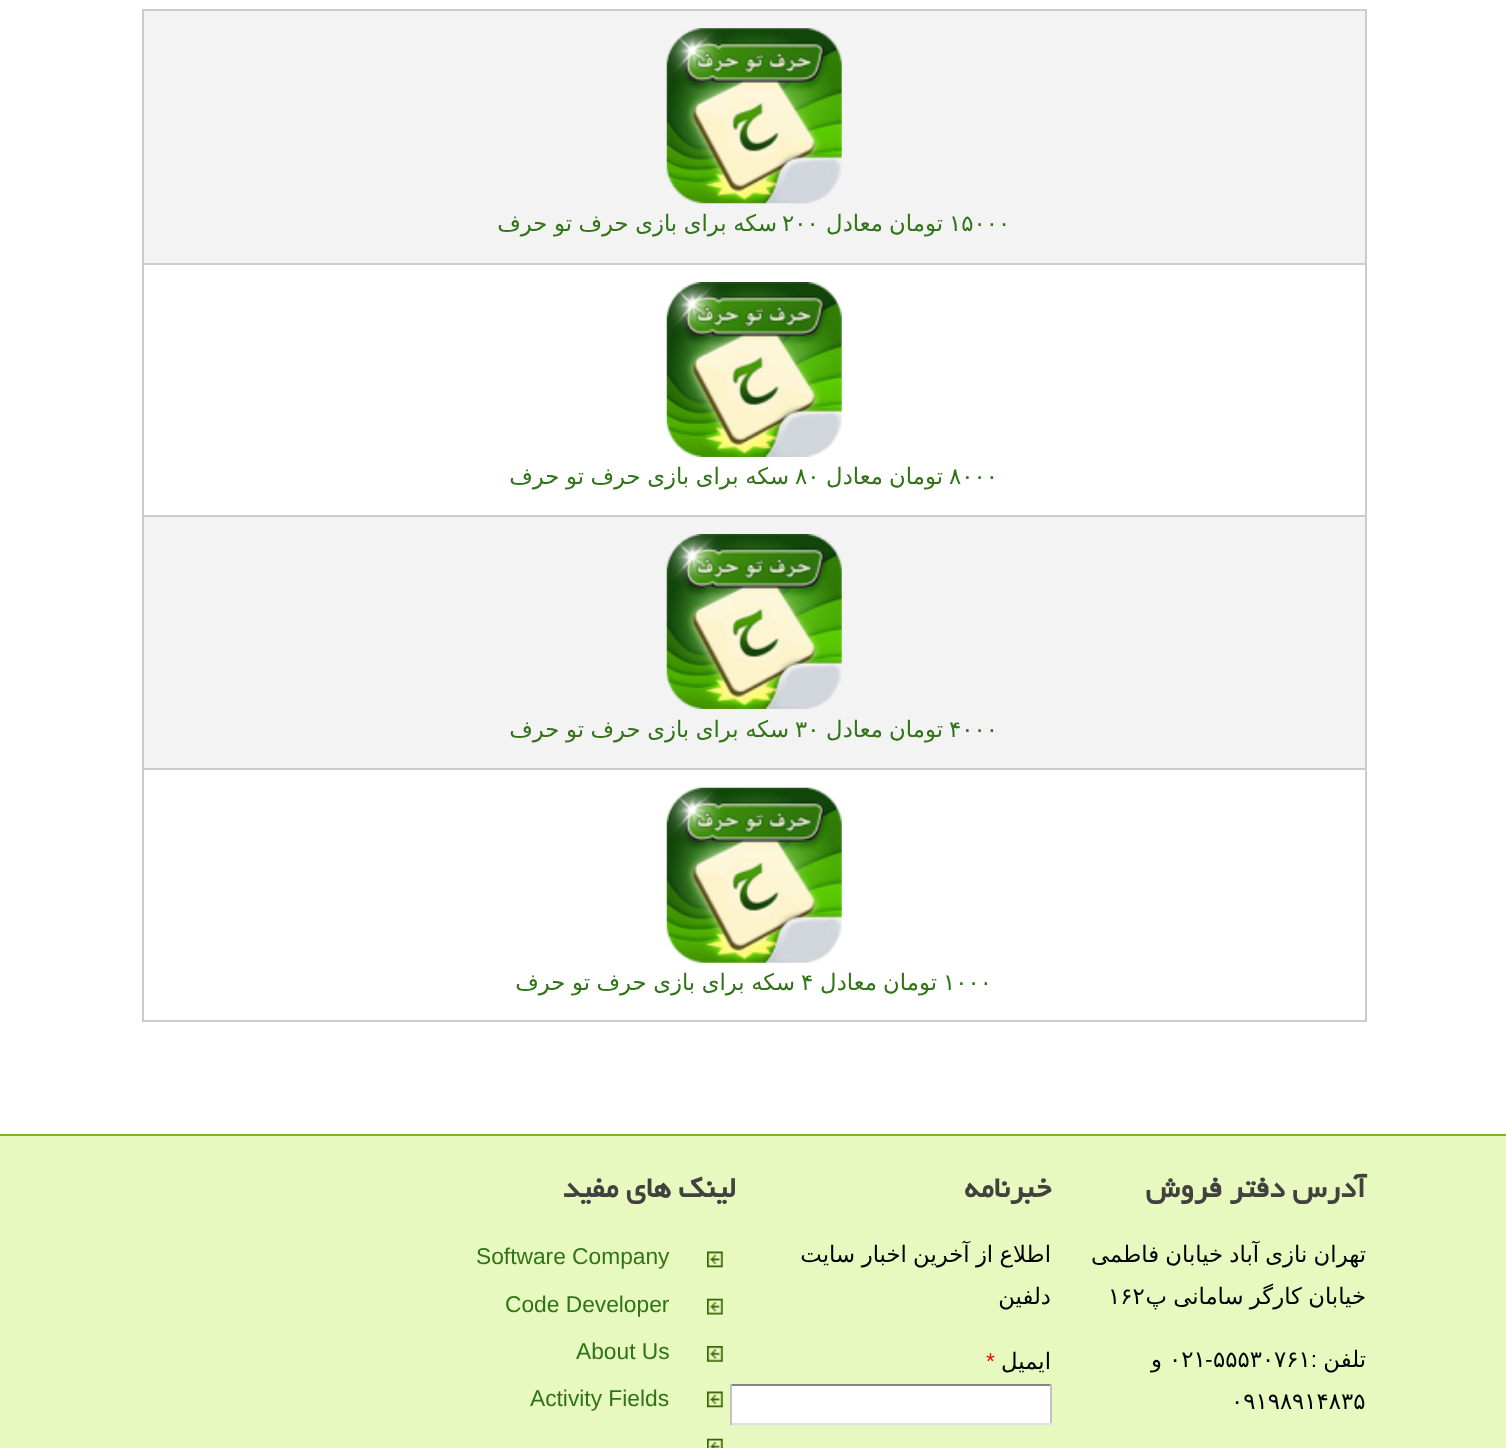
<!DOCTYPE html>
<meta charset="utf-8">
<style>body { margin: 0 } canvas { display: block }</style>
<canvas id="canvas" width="1506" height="1448"></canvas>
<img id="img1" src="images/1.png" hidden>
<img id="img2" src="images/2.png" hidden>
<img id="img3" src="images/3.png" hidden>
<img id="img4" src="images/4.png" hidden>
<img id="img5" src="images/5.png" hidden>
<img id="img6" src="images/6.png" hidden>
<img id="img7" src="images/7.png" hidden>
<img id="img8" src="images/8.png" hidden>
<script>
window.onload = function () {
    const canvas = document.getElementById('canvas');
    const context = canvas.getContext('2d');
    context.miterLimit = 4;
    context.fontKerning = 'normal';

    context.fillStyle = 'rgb(255, 255, 255)';
    context.fillRect(0, 0, 1506, 1448);
    context.fillStyle = 'rgb(243, 243, 243)';
    context.fillRect(144, 11, 1221, 252);
    context.fillStyle = 'rgb(204, 204, 204)';
    context.fillRect(142, 9, 1225, 2);
    context.fillRect(142, 263, 1225, 2);
    context.fillRect(142, 515, 1225, 2);
    context.fillRect(142, 768, 1225, 2);
    context.fillRect(1365, 768, 2, 254);
    context.fillRect(1365, 515, 2, 255);
    context.fillRect(1365, 263, 2, 253);
    context.fillRect(1365, 9, 2, 255);
    context.fillRect(142, 1020, 1225, 2);
    context.fillRect(142, 768, 2, 254);
    context.fillRect(142, 515, 2, 255);
    context.fillRect(142, 263, 2, 253);
    context.fillRect(142, 9, 2, 255);
    context.drawImage(document.getElementById('img1'), 666, 28, 176, 176);
    context.drawImage(document.getElementById('img2'), 666, 282, 176, 175);
    context.fillStyle = 'rgb(243, 243, 243)';
    context.fillRect(144, 517, 1221, 251);
    context.drawImage(document.getElementById('img3'), 666, 534, 176, 175);
    context.drawImage(document.getElementById('img4'), 666, 787, 176, 176);
    context.fillStyle = 'rgb(231, 249, 191)';
    context.fillRect(0, 1136, 1506, 312);
    context.fillStyle = 'rgb(119, 182, 39)';
    context.fillRect(0, 1134, 1506, 2);
    context.fillStyle = 'rgb(255, 255, 255)';
    context.fillRect(732, 1386, 318, 37);
    context.fillStyle = 'rgb(132, 132, 132)';
    context.fillRect(730, 1384, 322, 2);
    context.fillStyle = 'rgb(193, 193, 193)';
    context.fillRect(1050, 1384, 2, 41);
    context.fillStyle = 'rgb(225, 225, 225)';
    context.fillRect(730, 1423, 322, 2);
    context.fillStyle = 'rgb(193, 193, 193)';
    context.fillRect(730, 1384, 2, 41);
    context.drawImage(document.getElementById('img5'), 707, 1251, 16, 17);
    context.drawImage(document.getElementById('img6'), 707, 1298, 16, 17);
    context.drawImage(document.getElementById('img7'), 707, 1346, 16, 16);
    context.drawImage(document.getElementById('img5'), 707, 1391, 16, 17);
    context.drawImage(document.getElementById('img8'), 707, 1438, 16, 10);
    context.font = '22.75px DejaVu Sans';
    context.fillStyle = 'rgb(49, 115, 23)';
    context.fillText('۱۵۰۰۰', 949, 231);
    context.wordSpacing = '-1px';
    context.direction = 'rtl';
    context.fillText('تومان معادل', 943, 231);
    context.wordSpacing = '0px';
    context.direction = 'ltr';
    context.fillText('۲۰۰', 782, 231);
    context.wordSpacing = '-0.75px';
    context.direction = 'rtl';
    context.fillText('سکه برای بازی حرف تو حرف', 777, 231);
    context.wordSpacing = '0px';
    context.direction = 'ltr';
    context.fillText('۸۰۰۰', 949, 484);
    context.wordSpacing = '-1px';
    context.direction = 'rtl';
    context.fillText('تومان معادل', 943, 484);
    context.wordSpacing = '0px';
    context.direction = 'ltr';
    context.fillText('۸۰', 795, 484);
    context.wordSpacing = '-0.75px';
    context.direction = 'rtl';
    context.fillText('سکه برای بازی حرف تو حرف', 789, 484);
    context.wordSpacing = '0px';
    context.direction = 'ltr';
    context.fillText('۴۰۰۰', 949, 737);
    context.wordSpacing = '-1px';
    context.direction = 'rtl';
    context.fillText('تومان معادل', 943, 737);
    context.wordSpacing = '0px';
    context.direction = 'ltr';
    context.fillText('۳۰', 795, 737);
    context.wordSpacing = '-0.75px';
    context.direction = 'rtl';
    context.fillText('سکه برای بازی حرف تو حرف', 789, 737);
    context.wordSpacing = '0px';
    context.direction = 'ltr';
    context.fillText('۱۰۰۰', 943, 990);
    context.wordSpacing = '-1px';
    context.direction = 'rtl';
    context.fillText('تومان معادل', 937, 990);
    context.wordSpacing = '0px';
    context.direction = 'ltr';
    context.fillText('۴', 801, 990);
    context.wordSpacing = '-0.75px';
    context.direction = 'rtl';
    context.fillText('سکه برای بازی حرف تو حرف', 795, 990);
    context.wordSpacing = '0px';
    context.font = 'bold 31.75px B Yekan';
    context.fillStyle = 'rgb(66, 65, 64)';
    context.fillText('آدرس دفتر فروش', 1366, 1197);
    context.wordSpacing = '-1px';
    context.font = '22.75px DejaVu Sans';
    context.fillStyle = 'rgb(0, 0, 0)';
    context.fillText('تهران نازی آباد خیابان فاطمی', 1366, 1262);
    context.fillText('خیابان کارگر سامانی پ', 1366, 1304);
    context.wordSpacing = '0px';
    context.direction = 'ltr';
    context.fillText('۱۶۲', 1108, 1304);
    context.direction = 'rtl';
    context.fillText('تلفن', 1366, 1367);
    context.font = '22.75px Liberation Sans';
    context.fillText(':', 1317, 1367);
    context.direction = 'ltr';
    context.font = '22.75px DejaVu Sans';
    context.fillText('۵۵۵۳۰۷۶۱', 1213, 1367);
    context.font = '22.75px Liberation Sans';
    context.fillText('-', 1205, 1367);
    context.font = '22.75px DejaVu Sans';
    context.fillText('۰۲۱', 1169, 1367);
    context.direction = 'rtl';
    context.fillText('و', 1162, 1367);
    context.direction = 'ltr';
    context.fillText('۰۹۱۹۸۹۱۴۸۳۵', 1231, 1409);
    context.direction = 'rtl';
    context.font = 'bold 31.75px B Yekan';
    context.fillStyle = 'rgb(66, 65, 64)';
    context.fillText('خبرنامه', 1051, 1197);
    context.wordSpacing = '-1px';
    context.font = '22.75px DejaVu Sans';
    context.fillStyle = 'rgb(0, 0, 0)';
    context.fillText('اطلاع از آخرین اخبار', 1051, 1262);
    context.wordSpacing = '0px';
    context.fillText('سایت', 855, 1262);
    context.fillText('دلفین', 1051, 1304);
    context.fillText('ایمیل', 1051, 1369);
    context.direction = 'ltr';
    context.font = '22.75px Liberation Sans';
    context.fillStyle = 'rgb(255, 0, 0)';
    context.fillText('*', 986, 1369);
    context.direction = 'rtl';
    context.font = 'bold 31.75px B Yekan';
    context.fillStyle = 'rgb(66, 65, 64)';
    context.fillText('لینک های مفید', 736, 1197);
    context.direction = 'ltr';
    context.font = '22.75px Liberation Sans';
    context.fillStyle = 'rgb(49, 115, 23)';
    context.fillText('Software Company', 476, 1264);
    context.fillText('Code Developer', 505, 1312);
    context.fillText('About Us', 576, 1359);
    context.fillText('Activity Fields', 530, 1406);
};
</script>
